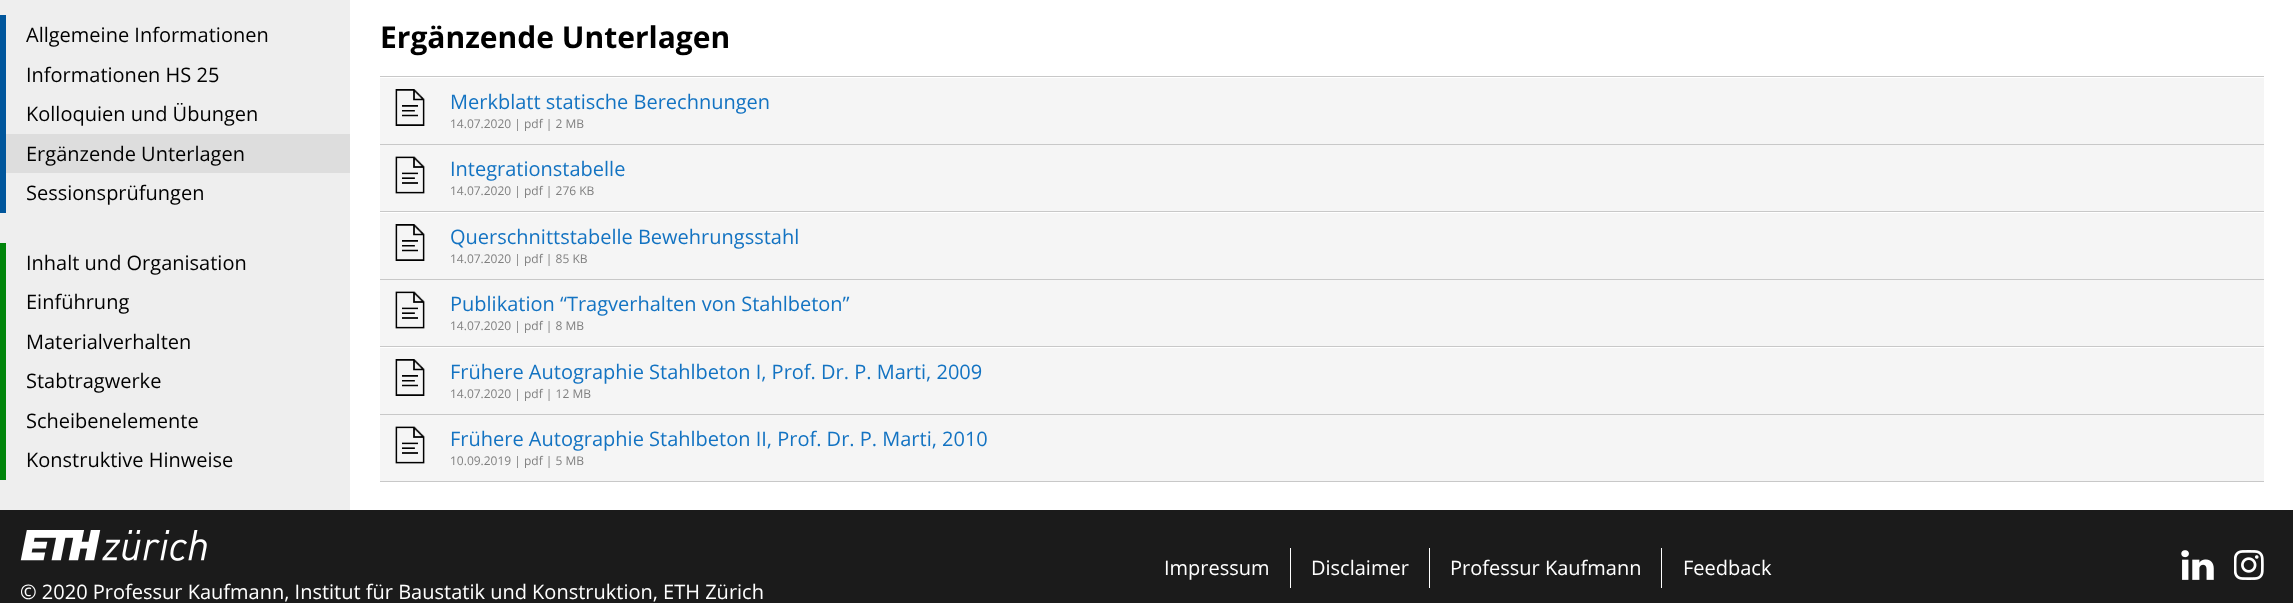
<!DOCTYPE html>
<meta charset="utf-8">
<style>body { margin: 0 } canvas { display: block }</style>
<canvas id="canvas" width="2293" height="603"></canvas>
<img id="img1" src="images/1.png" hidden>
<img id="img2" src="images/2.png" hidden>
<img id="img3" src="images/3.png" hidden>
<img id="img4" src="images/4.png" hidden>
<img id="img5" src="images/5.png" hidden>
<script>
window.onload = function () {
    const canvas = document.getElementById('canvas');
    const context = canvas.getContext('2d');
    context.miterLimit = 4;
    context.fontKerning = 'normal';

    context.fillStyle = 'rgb(255, 255, 255)';
    context.fillRect(0, 0, 2293, 603);
    context.fillStyle = 'rgb(238, 238, 238)';
    context.fillRect(0, 0, 350, 510);
    context.fillStyle = 'rgb(0, 86, 156)';
    context.fillRect(0, 15, 6, 198);
    context.fillStyle = 'rgb(221, 221, 221)';
    context.fillRect(6, 134, 344, 39);
    context.fillStyle = 'rgb(0, 133, 11)';
    context.fillRect(0, 243, 6, 237);
    context.fillStyle = 'rgb(200, 200, 200)';
    context.fillRect(380, 76, 1884, 1);
    context.fillRect(380, 144, 1884, 1);
    context.fillStyle = 'rgb(245, 245, 245)';
    context.fillRect(380, 78, 1884, 66);
    context.drawImage(document.getElementById('img1'), 395, 89, 30, 37);
    context.fillStyle = 'rgb(200, 200, 200)';
    context.fillRect(380, 211, 1884, 1);
    context.fillStyle = 'rgb(245, 245, 245)';
    context.fillRect(380, 145, 1884, 66);
    context.drawImage(document.getElementById('img2'), 395, 156, 30, 38);
    context.fillStyle = 'rgb(200, 200, 200)';
    context.fillRect(380, 279, 1884, 1);
    context.fillStyle = 'rgb(245, 245, 245)';
    context.fillRect(380, 213, 1884, 66);
    context.drawImage(document.getElementById('img1'), 395, 224, 30, 37);
    context.fillStyle = 'rgb(200, 200, 200)';
    context.fillRect(380, 346, 1884, 1);
    context.fillStyle = 'rgb(245, 245, 245)';
    context.fillRect(380, 280, 1884, 66);
    context.drawImage(document.getElementById('img2'), 395, 291, 30, 38);
    context.fillStyle = 'rgb(200, 200, 200)';
    context.fillRect(380, 414, 1884, 1);
    context.fillStyle = 'rgb(245, 245, 245)';
    context.fillRect(380, 348, 1884, 66);
    context.drawImage(document.getElementById('img1'), 395, 359, 30, 37);
    context.fillStyle = 'rgb(200, 200, 200)';
    context.fillRect(380, 481, 1884, 1);
    context.fillStyle = 'rgb(245, 245, 245)';
    context.fillRect(380, 415, 1884, 66);
    context.drawImage(document.getElementById('img2'), 395, 426, 30, 38);
    context.fillStyle = 'rgb(27, 27, 27)';
    context.fillRect(0, 510, 2293, 93);
    context.fillStyle = 'rgb(255, 255, 255)';
    context.fillRect(1290, 548, 1, 40);
    context.fillRect(1429, 548, 1, 40);
    context.fillRect(1661, 548, 1, 40);
    context.drawImage(document.getElementById('img3'), 2181, 550, 33, 30);
    context.drawImage(document.getElementById('img4'), 2234, 550, 30, 30);
    context.drawImage(document.getElementById('img5'), 20, 530, 187, 31);
    context.font = '20px Open Sans';
    context.fillStyle = 'rgb(0, 0, 0)';
    context.fillText('Allgemeine Informationen', 26, 42);
    context.fillText('Informationen HS 25', 26, 82);
    context.fillText('Kolloquien und Übungen', 26, 121);
    context.fillText('Ergänzende Unterlagen', 26, 161);
    context.fillText('Sessionsprüfungen', 26, 200);
    context.fillText('Inhalt und Organisation', 26, 270);
    context.fillText('Einführung', 26, 309);
    context.fillText('Materialverhalten', 26, 349);
    context.fillText('Stabtragwerke', 26, 388);
    context.fillText('Scheibenelemente', 26, 428);
    context.fillText('Konstruktive Hinweise', 26, 467);
    context.font = 'bold 30px Open Sans';
    context.fillText('Ergänzende Unterlagen', 380, 48);
    context.font = '20px Open Sans';
    context.fillStyle = 'rgb(19, 115, 194)';
    context.fillText('Merkblatt statische Berechnungen', 450, 109);
    context.font = '12px Open Sans';
    context.fillStyle = 'rgb(128, 128, 128)';
    context.fillText('14.07.2020 | pdf | 2 MB', 450, 128);
    context.font = '20px Open Sans';
    context.fillStyle = 'rgb(19, 115, 194)';
    context.fillText('Integrationstabelle', 450, 176);
    context.font = '12px Open Sans';
    context.fillStyle = 'rgb(128, 128, 128)';
    context.fillText('14.07.2020 | pdf | 276 KB', 450, 195);
    context.font = '20px Open Sans';
    context.fillStyle = 'rgb(19, 115, 194)';
    context.fillText('Querschnittstabelle Bewehrungsstahl', 450, 244);
    context.font = '12px Open Sans';
    context.fillStyle = 'rgb(128, 128, 128)';
    context.fillText('14.07.2020 | pdf | 85 KB', 450, 263);
    context.font = '20px Open Sans';
    context.fillStyle = 'rgb(19, 115, 194)';
    context.fillText('Publikation “Tragverhalten von Stahlbeton”', 450, 311);
    context.font = '12px Open Sans';
    context.fillStyle = 'rgb(128, 128, 128)';
    context.fillText('14.07.2020 | pdf | 8 MB', 450, 330);
    context.font = '20px Open Sans';
    context.fillStyle = 'rgb(19, 115, 194)';
    context.fillText('Frühere Autographie Stahlbeton I, Prof. Dr. P. Marti, 2009', 450, 379);
    context.font = '12px Open Sans';
    context.fillStyle = 'rgb(128, 128, 128)';
    context.fillText('14.07.2020 | pdf | 12 MB', 450, 398);
    context.font = '20px Open Sans';
    context.fillStyle = 'rgb(19, 115, 194)';
    context.fillText('Frühere Autographie Stahlbeton II, Prof. Dr. P. Marti, 2010', 450, 446);
    context.font = '12px Open Sans';
    context.fillStyle = 'rgb(128, 128, 128)';
    context.fillText('10.09.2019 | pdf | 5 MB', 450, 465);
    context.font = '20px Open Sans';
    context.fillStyle = 'rgb(255, 255, 255)';
    context.fillText('Impressum', 1164, 575);
    context.fillText('Disclaimer', 1311, 575);
    context.fillText('Professur Kaufmann', 1450, 575);
    context.fillText('Feedback', 1683, 575);
    context.fillText('© 2020 Professur Kaufmann, Institut für Baustatik und Konstruktion, ETH Zürich', 20, 599);
};
</script>
